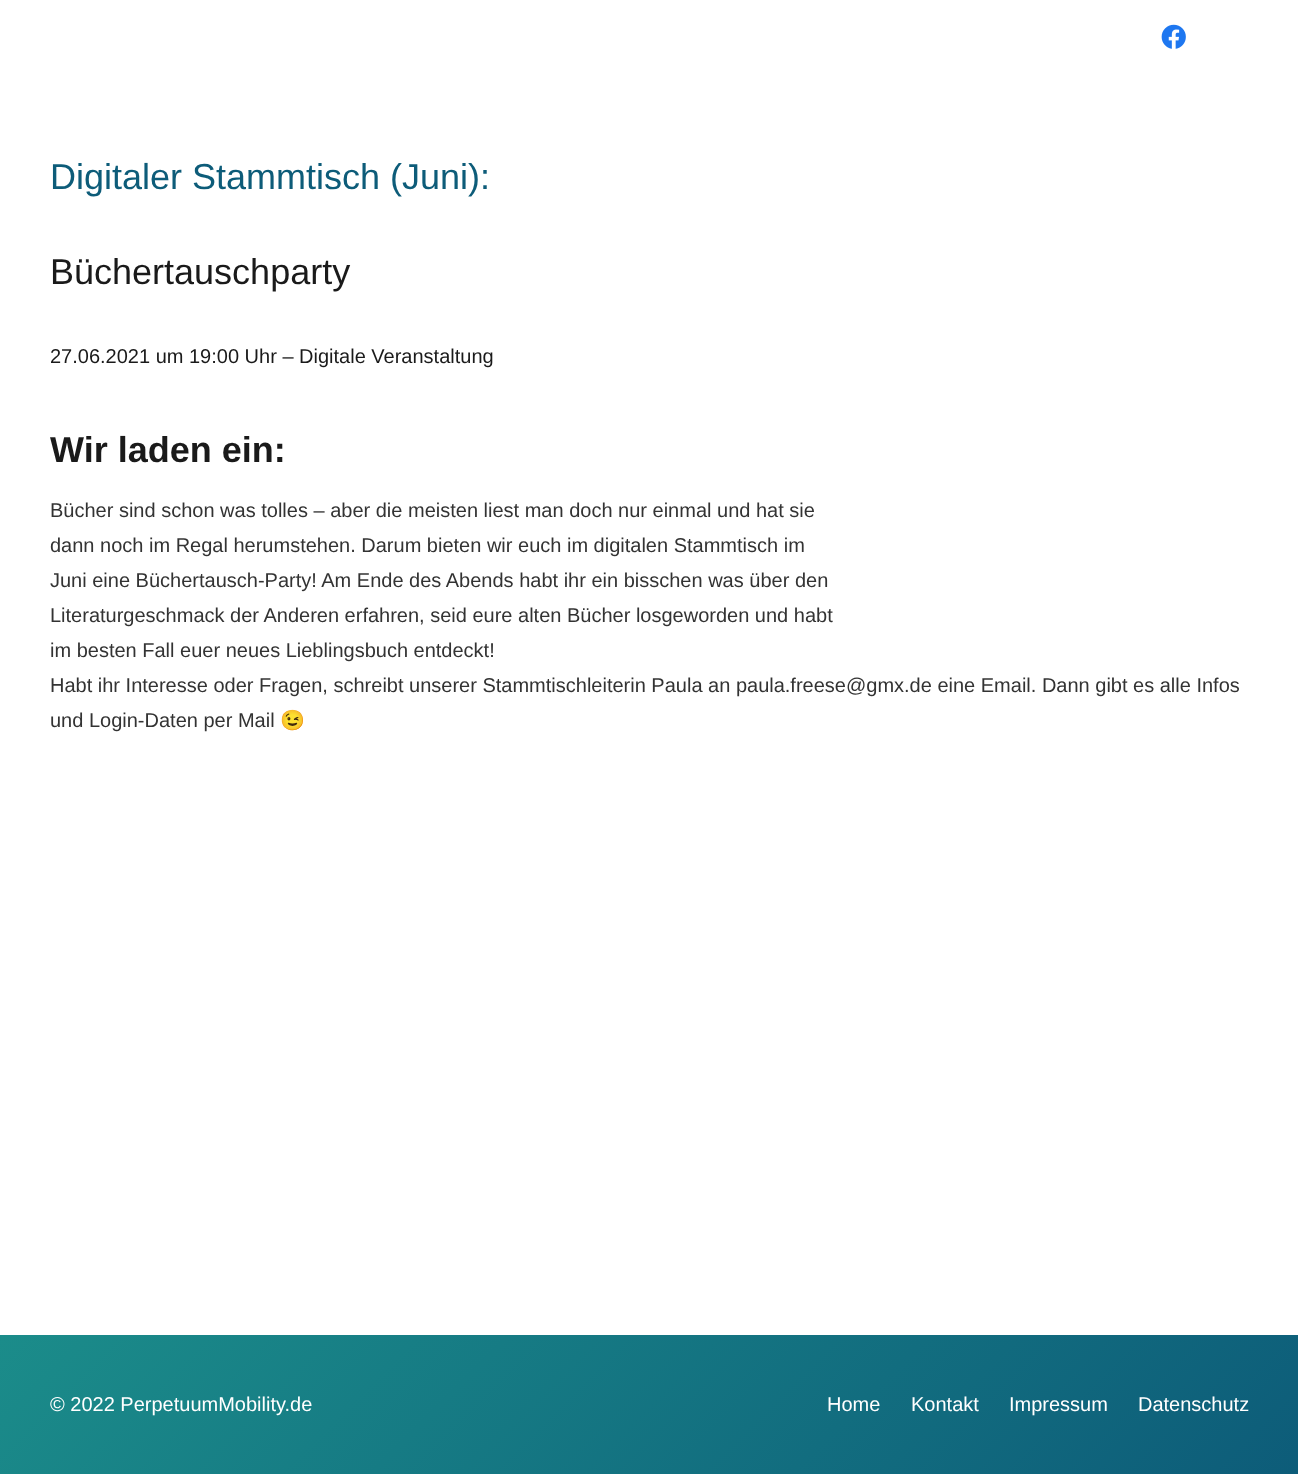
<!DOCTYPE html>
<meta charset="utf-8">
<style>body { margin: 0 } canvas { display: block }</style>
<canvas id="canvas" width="1298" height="1474"></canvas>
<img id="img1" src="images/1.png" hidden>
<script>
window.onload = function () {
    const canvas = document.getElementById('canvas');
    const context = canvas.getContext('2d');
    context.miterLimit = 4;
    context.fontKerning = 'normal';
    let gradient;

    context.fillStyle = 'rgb(255, 255, 255)';
    context.fillRect(0, 0, 1298, 1474);
    context.drawImage(document.getElementById('img1'), 1161, 24, 25, 25);
    gradient = context.createLinearGradient(290, 1045, 1009, 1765);
    gradient.addColorStop(0, 'rgb(27, 140, 138)');
    gradient.addColorStop(1, 'rgb(13, 92, 121)');
    context.fillStyle = gradient;
    context.fillRect(0, 1335, 1298, 139);
    context.font = '36px Liberation Sans';
    context.fillStyle = 'rgb(13, 92, 121)';
    context.fillText('Digitaler Stammtisch (Juni):', 50, 189);
    context.fillStyle = 'rgb(26, 26, 26)';
    context.fillText('Büchertauschparty', 50, 284);
    context.font = '20px Liberation Sans';
    context.fillText('27.06.2021 um 19:00 Uhr – Digitale Veranstaltung', 50, 363);
    context.font = 'bold 36px Liberation Sans';
    context.fillText('Wir laden ein:', 50, 462);
    context.font = '20px Liberation Sans';
    context.fillStyle = 'rgb(51, 51, 51)';
    context.fillText('Bücher sind schon was tolles – aber die meisten liest man doch nur einmal und hat sie', 50, 517);
    context.fillText('dann noch im Regal herumstehen. Darum bieten wir euch im digitalen Stammtisch im', 50, 552);
    context.fillText('Juni eine Büchertausch-Party! Am Ende des Abends habt ihr ein bisschen was über den', 50, 587);
    context.fillText('Literaturgeschmack der Anderen erfahren, seid eure alten Bücher losgeworden und habt', 50, 622);
    context.fillText('im besten Fall euer neues Lieblingsbuch entdeckt!', 50, 657);
    context.fillText('Habt ihr Interesse oder Fragen, schreibt unserer Stammtischleiterin Paula an paula.freese@gmx.de eine Email. Dann gibt es alle Infos', 50, 692);
    context.fillText('und Login-Daten per Mail', 50, 727);
    context.font = '20px Noto Color Emoji';
    context.fillText('😉', 280, 727);
    context.font = '20px Liberation Sans';
    context.fillStyle = 'rgb(255, 255, 255)';
    context.fillText('© 2022 PerpetuumMobility.de', 50, 1411);
    context.fillText('Home', 827, 1411);
    context.fillText('Kontakt', 911, 1411);
    context.fillText('Impressum', 1009, 1411);
    context.fillText('Datenschutz', 1138, 1411);
};
</script>
